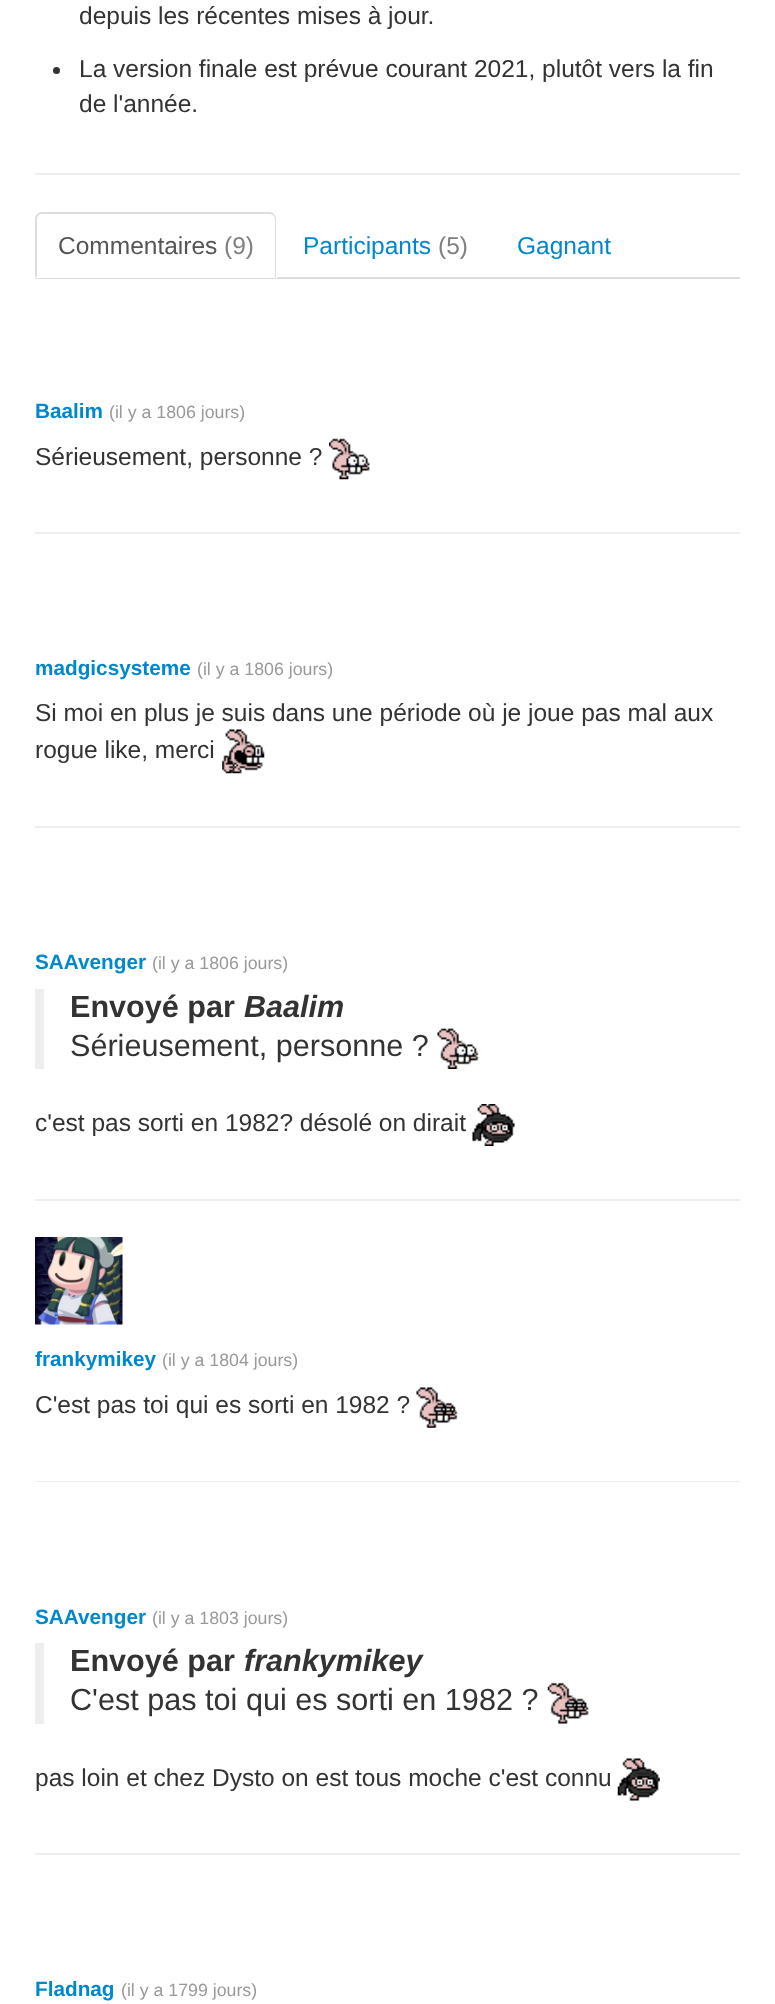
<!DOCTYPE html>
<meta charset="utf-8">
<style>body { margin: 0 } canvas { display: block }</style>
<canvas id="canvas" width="775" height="2004"></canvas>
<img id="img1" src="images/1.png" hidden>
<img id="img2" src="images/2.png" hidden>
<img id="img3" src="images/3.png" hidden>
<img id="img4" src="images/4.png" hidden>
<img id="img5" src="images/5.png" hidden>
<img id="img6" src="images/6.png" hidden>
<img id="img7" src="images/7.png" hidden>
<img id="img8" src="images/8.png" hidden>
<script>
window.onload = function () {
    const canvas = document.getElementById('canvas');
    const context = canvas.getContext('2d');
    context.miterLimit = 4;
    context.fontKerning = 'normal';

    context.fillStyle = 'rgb(255, 255, 255)';
    context.fillRect(0, 0, 775, 2004);
    context.fillStyle = 'rgb(51, 51, 51)';
    context.beginPath();
    context.arc(56.5, 70.5, 3.5, 0, 2 * Math.PI);
    context.fill();
    context.fillStyle = 'rgb(238, 238, 238)';
    context.fillRect(35, 173, 705, 2);
    context.fillStyle = 'rgb(221, 221, 221)';
    context.fillRect(35, 277, 705, 2);
    context.fillStyle = 'rgb(255, 255, 255)';
    context.beginPath();
    context.roundRect(35, 212, 242, 66, [7, 7, 0, 0]);
    context.fill();
    context.fillStyle = 'rgb(221, 221, 221)';
    context.beginPath();
    context.moveTo(42, 212);
    context.bezierCurveTo(40, 212, 38, 213, 37, 214);
    context.lineTo(39, 215);
    context.bezierCurveTo(39, 214, 41, 214, 42, 214);
    context.lineTo(270, 214);
    context.lineTo(273, 215);
    context.lineTo(274, 214);
    context.bezierCurveTo(273, 213, 272, 212, 270, 212);
    context.closePath();
    context.fill();
    context.beginPath();
    context.moveTo(276, 278);
    context.lineTo(276, 219);
    context.bezierCurveTo(276, 217, 275, 215, 274, 214);
    context.lineTo(273, 215);
    context.lineTo(275, 218);
    context.lineTo(275, 276);
    context.lineTo(274, 276);
    context.closePath();
    context.fill();
    context.beginPath();
    context.moveTo(35, 219);
    context.lineTo(35, 278);
    context.lineTo(37, 276);
    context.lineTo(37, 219);
    context.bezierCurveTo(37, 217, 38, 216, 39, 215);
    context.lineTo(37, 214);
    context.bezierCurveTo(36, 215, 35, 217, 35, 219);
    context.closePath();
    context.fill();
    context.drawImage(document.getElementById('img1'), 329, 438, 41, 42);
    context.fillStyle = 'rgb(238, 238, 238)';
    context.fillRect(35, 532, 705, 2);
    context.drawImage(document.getElementById('img2'), 222, 729, 43, 45);
    context.fillRect(35, 826, 705, 2);
    context.fillRect(35, 989, 9, 80);
    context.drawImage(document.getElementById('img3'), 437, 1028, 42, 41);
    context.drawImage(document.getElementById('img4'), 472, 1104, 43, 42);
    context.fillRect(35, 1199, 705, 2);
    context.drawImage(document.getElementById('img5'), 35, 1237, 88, 88);
    context.drawImage(document.getElementById('img6'), 416, 1387, 42, 41);
    context.fillRect(35, 1481, 705, 1);
    context.fillRect(35, 1643, 9, 81);
    context.drawImage(document.getElementById('img7'), 547, 1682, 42, 42);
    context.drawImage(document.getElementById('img8'), 617, 1758, 43, 43);
    context.fillRect(35, 1853, 705, 2);
    context.font = '24.5px Liberation Sans';
    context.fillStyle = 'rgb(51, 51, 51)';
    context.fillText('depuis les récentes mises à jour.', 79, 24);
    context.fillText('La version finale est prévue courant 2021, plutôt vers la fin', 79, 77);
    context.fillText('de l\'année.', 79, 112);
    context.fillStyle = 'rgb(85, 85, 85)';
    context.fillText('Commentaires', 58, 254);
    context.fillStyle = 'rgb(128, 128, 128)';
    context.fillText('(9)', 224, 254);
    context.fillStyle = 'rgb(0, 136, 204)';
    context.fillText('Participants', 303, 254);
    context.fillStyle = 'rgb(128, 128, 128)';
    context.fillText('(5)', 438, 254);
    context.fillStyle = 'rgb(0, 136, 204)';
    context.fillText('Gagnant', 517, 254);
    context.font = 'bold 20.75px Liberation Sans';
    context.fillText('Baalim', 35, 418);
    context.font = '17.75px Liberation Sans';
    context.fillStyle = 'rgb(153, 153, 153)';
    context.fillText('(il y a 1806 jours)', 109, 418);
    context.font = '24.5px Liberation Sans';
    context.fillStyle = 'rgb(51, 51, 51)';
    context.fillText('Sérieusement, personne ?', 35, 465);
    context.font = 'bold 20.75px Liberation Sans';
    context.fillStyle = 'rgb(0, 136, 204)';
    context.fillText('madgicsysteme', 35, 675);
    context.font = '17.75px Liberation Sans';
    context.fillStyle = 'rgb(153, 153, 153)';
    context.fillText('(il y a 1806 jours)', 197, 675);
    context.font = '24.5px Liberation Sans';
    context.fillStyle = 'rgb(51, 51, 51)';
    context.fillText('Si moi en plus je suis dans une période où je joue pas mal aux', 35, 721);
    context.fillText('rogue like, merci', 35, 758);
    context.font = 'bold 20.75px Liberation Sans';
    context.fillStyle = 'rgb(0, 136, 204)';
    context.fillText('SAAvenger', 35, 969);
    context.font = '17.75px Liberation Sans';
    context.fillStyle = 'rgb(153, 153, 153)';
    context.fillText('(il y a 1806 jours)', 152, 969);
    context.font = 'bold 30.6px Liberation Sans';
    context.fillStyle = 'rgb(51, 51, 51)';
    context.fillText('Envoyé par', 70, 1017);
    context.font = 'italic bold 30.6px Liberation Sans';
    context.fillText('Baalim', 244, 1017);
    context.font = '30.6px Liberation Sans';
    context.fillText('Sérieusement, personne ?', 70, 1056);
    context.font = '24.5px Liberation Sans';
    context.fillText('c\'est pas sorti en 1982? désolé on dirait', 35, 1131);
    context.font = 'bold 20.75px Liberation Sans';
    context.fillStyle = 'rgb(0, 136, 204)';
    context.fillText('frankymikey', 35, 1366);
    context.font = '17.75px Liberation Sans';
    context.fillStyle = 'rgb(153, 153, 153)';
    context.fillText('(il y a 1804 jours)', 162, 1366);
    context.font = '24.5px Liberation Sans';
    context.fillStyle = 'rgb(51, 51, 51)';
    context.fillText('C\'est pas toi qui es sorti en 1982 ?', 35, 1413);
    context.font = 'bold 20.75px Liberation Sans';
    context.fillStyle = 'rgb(0, 136, 204)';
    context.fillText('SAAvenger', 35, 1624);
    context.font = '17.75px Liberation Sans';
    context.fillStyle = 'rgb(153, 153, 153)';
    context.fillText('(il y a 1803 jours)', 152, 1624);
    context.font = 'bold 30.6px Liberation Sans';
    context.fillStyle = 'rgb(51, 51, 51)';
    context.fillText('Envoyé par', 70, 1671);
    context.font = 'italic bold 30.6px Liberation Sans';
    context.fillText('frankymikey', 244, 1671);
    context.font = '30.6px Liberation Sans';
    context.fillText('C\'est pas toi qui es sorti en 1982 ?', 70, 1710);
    context.font = '24.5px Liberation Sans';
    context.fillText('pas loin et chez Dysto on est tous moche c\'est connu', 35, 1786);
    context.font = 'bold 20.75px Liberation Sans';
    context.fillStyle = 'rgb(0, 136, 204)';
    context.fillText('Fladnag', 35, 1996);
    context.font = '17.75px Liberation Sans';
    context.fillStyle = 'rgb(153, 153, 153)';
    context.fillText('(il y a 1799 jours)', 121, 1996);
};
</script>
